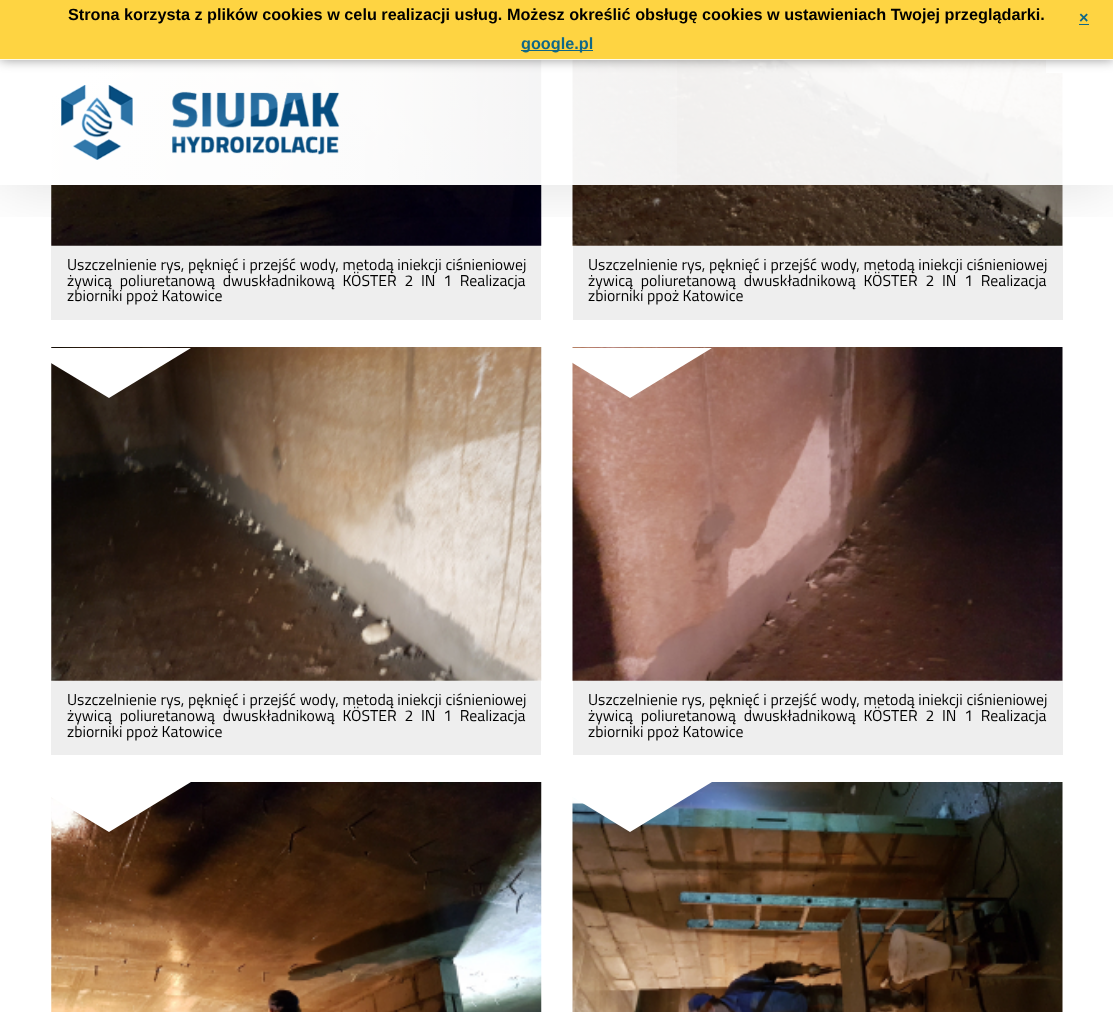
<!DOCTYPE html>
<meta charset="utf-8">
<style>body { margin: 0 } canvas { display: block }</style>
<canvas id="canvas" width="1113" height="1012"></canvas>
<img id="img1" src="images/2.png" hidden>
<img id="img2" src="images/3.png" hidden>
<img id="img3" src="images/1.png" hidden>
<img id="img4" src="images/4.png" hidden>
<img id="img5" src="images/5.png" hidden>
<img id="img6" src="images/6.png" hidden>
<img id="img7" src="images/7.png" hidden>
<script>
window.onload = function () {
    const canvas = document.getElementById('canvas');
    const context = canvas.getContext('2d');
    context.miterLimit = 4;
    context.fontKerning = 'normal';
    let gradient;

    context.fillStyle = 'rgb(255, 255, 255)';
    context.fillRect(0, 0, 1113, 1012);
    context.drawImage(document.getElementById('img1'), 51, 60, 491, 186);
    context.fillStyle = 'rgb(238, 238, 238)';
    context.fillRect(51, 246, 490, 74);
    context.drawImage(document.getElementById('img2'), 572, 60, 491, 186);
    context.fillRect(573, 246, 490, 74);
    context.save();
    context.beginPath();
    context.rect(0, 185, 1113, 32);
    context.clip();
    context.fillStyle = 'rgba(0, 0, 0, 0.13)';
    context.filter = 'blur(31px)';
    context.beginPath();
    context.rect(0, 60, 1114, 125);
    context.fill();
    context.filter = 'none';
    context.restore();
    context.fillStyle = 'rgba(255, 255, 255, 0.93)';
    context.fillRect(51, 60, 1012, 125);
    gradient = context.createLinearGradient(0, 123, 750, 122);
    gradient.addColorStop(0, 'rgb(255, 255, 255)');
    gradient.addColorStop(0.5, 'rgba(255, 255, 255, 0.8)');
    gradient.addColorStop(1, 'rgba(255, 255, 255, 0)');
    context.fillStyle = gradient;
    context.fillRect(51, 60, 626, 125);
    context.fillStyle = 'rgb(255, 255, 255)';
    context.fillRect(1046, 60, 17, 13);
    context.drawImage(document.getElementById('img3'), 61, 85, 279, 75);
    context.fillStyle = 'rgba(0, 0, 0, 0.4)';
    context.filter = 'blur(6px)';
    context.beginPath();
    context.rect(0, 0, 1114, 60);
    context.fill();
    context.filter = 'none';
    context.fillStyle = 'rgb(254, 212, 66)';
    context.fillRect(0, 0, 1113, 59);
    context.fillStyle = 'rgb(254, 252, 234)';
    context.fillRect(0, 59, 1113, 1);
    context.fillStyle = 'rgb(17, 104, 134)';
    context.fillRect(1079, 24, 10, 1);
    context.fillRect(521, 50, 72, 1);
    context.drawImage(document.getElementById('img4'), 51, 347, 491, 334);
    context.fillStyle = 'rgb(255, 255, 255)';
    context.beginPath();
    context.moveTo(26, 348);
    context.lineTo(191, 348);
    context.lineTo(109, 398);
    context.closePath();
    context.fill();
    context.fillStyle = 'rgb(238, 238, 238)';
    context.fillRect(51, 681, 490, 74);
    context.drawImage(document.getElementById('img5'), 572, 347, 491, 334);
    context.fillStyle = 'rgb(255, 255, 255)';
    context.beginPath();
    context.moveTo(548, 348);
    context.lineTo(712, 348);
    context.lineTo(630, 398);
    context.closePath();
    context.fill();
    context.fillStyle = 'rgb(238, 238, 238)';
    context.fillRect(573, 681, 490, 74);
    context.drawImage(document.getElementById('img6'), 51, 782, 491, 230);
    context.fillStyle = 'rgb(255, 255, 255)';
    context.beginPath();
    context.moveTo(26, 782);
    context.lineTo(191, 782);
    context.lineTo(109, 832);
    context.closePath();
    context.fill();
    context.drawImage(document.getElementById('img7'), 572, 782, 491, 230);
    context.beginPath();
    context.moveTo(548, 782);
    context.lineTo(712, 782);
    context.lineTo(630, 832);
    context.closePath();
    context.fill();
    context.font = 'bold 16.25px Liberation Sans';
    context.fillStyle = 'rgb(0, 0, 0)';
    context.fillText('Strona korzysta z plików cookies w celu realizacji usług. Możesz określić obsługę cookies w ustawieniach Twojej przeglądarki.', 68, 20);
    context.fillStyle = 'rgb(17, 104, 134)';
    context.fillText('×', 1079, 23);
    context.fillText('google.pl', 521, 49);
    context.wordSpacing = '0.25px';
    context.font = '15.75px Titillium Web';
    context.fillStyle = 'rgb(0, 0, 0)';
    context.fillText('Uszczelnienie rys, pęknięć i przejść wody, metodą iniekcji ciśnieniowej', 67, 270);
    context.wordSpacing = '4.25px';
    context.fillText('żywicą poliuretanową dwuskładnikową KÖSTER 2 IN 1 Realizacja', 67, 286);
    context.wordSpacing = '0px';
    context.fillText('zbiorniki ppoż Katowice', 67, 301);
    context.wordSpacing = '0.25px';
    context.fillText('Uszczelnienie rys, pęknięć i przejść wody, metodą iniekcji ciśnieniowej', 588, 270);
    context.wordSpacing = '4.25px';
    context.fillText('żywicą poliuretanową dwuskładnikową KÖSTER 2 IN 1 Realizacja', 588, 286);
    context.wordSpacing = '0px';
    context.fillText('zbiorniki ppoż Katowice', 588, 301);
    context.wordSpacing = '0.25px';
    context.fillText('Uszczelnienie rys, pęknięć i przejść wody, metodą iniekcji ciśnieniowej', 67, 705);
    context.wordSpacing = '4.25px';
    context.fillText('żywicą poliuretanową dwuskładnikową KÖSTER 2 IN 1 Realizacja', 67, 721);
    context.wordSpacing = '0px';
    context.fillText('zbiorniki ppoż Katowice', 67, 737);
    context.wordSpacing = '0.25px';
    context.fillText('Uszczelnienie rys, pęknięć i przejść wody, metodą iniekcji ciśnieniowej', 588, 705);
    context.wordSpacing = '4.25px';
    context.fillText('żywicą poliuretanową dwuskładnikową KÖSTER 2 IN 1 Realizacja', 588, 721);
    context.wordSpacing = '0px';
    context.fillText('zbiorniki ppoż Katowice', 588, 737);
};
</script>
